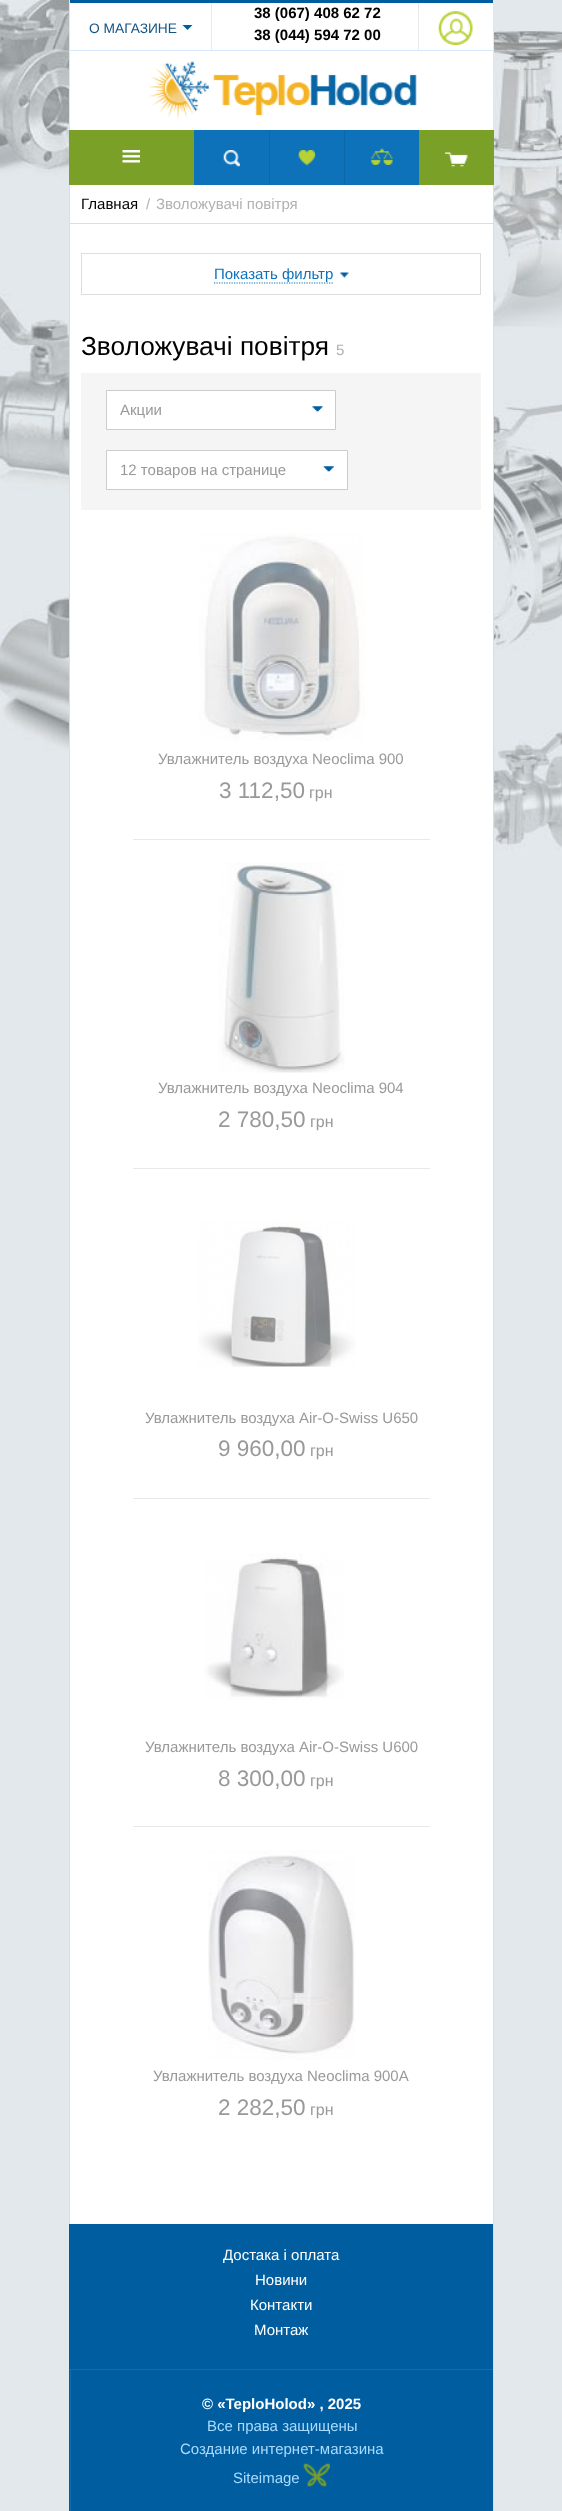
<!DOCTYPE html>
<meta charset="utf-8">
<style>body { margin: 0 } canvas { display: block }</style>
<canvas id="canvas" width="562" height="2511"></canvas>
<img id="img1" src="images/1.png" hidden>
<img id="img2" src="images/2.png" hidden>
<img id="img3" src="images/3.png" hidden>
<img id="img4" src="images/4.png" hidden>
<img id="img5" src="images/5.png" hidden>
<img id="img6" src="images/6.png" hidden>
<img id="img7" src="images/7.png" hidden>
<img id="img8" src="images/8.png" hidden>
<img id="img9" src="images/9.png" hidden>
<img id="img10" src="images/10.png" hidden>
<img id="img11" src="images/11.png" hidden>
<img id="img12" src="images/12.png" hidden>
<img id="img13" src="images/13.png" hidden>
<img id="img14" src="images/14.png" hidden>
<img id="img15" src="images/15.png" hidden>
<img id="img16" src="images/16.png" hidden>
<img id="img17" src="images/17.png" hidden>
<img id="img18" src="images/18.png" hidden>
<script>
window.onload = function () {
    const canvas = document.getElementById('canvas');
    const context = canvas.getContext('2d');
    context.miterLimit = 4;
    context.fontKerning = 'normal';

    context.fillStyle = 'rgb(226, 232, 236)';
    context.fillRect(0, 0, 562, 2511);
    context.drawImage(document.getElementById('img1'), 0, 0, 69, 752);
    context.drawImage(document.getElementById('img2'), 494, 30, 68, 830);
    context.fillStyle = 'rgb(255, 255, 255)';
    context.fillRect(70, 51, 423, 79);
    context.fillStyle = 'rgb(214, 233, 255)';
    context.fillRect(69, 50, 425, 1);
    context.fillRect(493, 0, 1, 130);
    context.fillRect(69, 0, 1, 130);
    context.drawImage(document.getElementById('img3'), 148, 61, 269, 58);
    context.fillStyle = 'rgb(255, 255, 255)';
    context.fillRect(70, 3, 423, 47);
    context.fillStyle = 'rgb(233, 233, 233)';
    context.fillRect(211, 0, 1, 50);
    context.fillStyle = 'rgb(0, 93, 159)';
    context.fillRect(70, 0, 423, 3);
    context.beginPath();
    context.moveTo(182.5, 25);
    context.lineTo(192.5, 25);
    context.lineTo(187.5, 30);
    context.closePath();
    context.fill();
    context.fillStyle = 'rgb(233, 233, 233)';
    context.fillRect(418, 3, 1, 47);
    context.drawImage(document.getElementById('img4'), 438, 11, 35, 34);
    context.fillStyle = 'rgb(13, 114, 186)';
    context.fillRect(194, 130, 225, 55);
    context.fillStyle = 'rgb(122, 160, 39)';
    context.fillRect(69, 130, 125, 55);
    context.drawImage(document.getElementById('img5'), 122, 150, 18, 13);
    context.drawImage(document.getElementById('img6'), 223, 150, 17, 17);
    context.fillStyle = 'rgb(13, 104, 168)';
    context.fillRect(269, 130, 1, 55);
    context.drawImage(document.getElementById('img7'), 298, 150, 18, 16);
    context.fillRect(344, 130, 1, 55);
    context.drawImage(document.getElementById('img8'), 371, 148, 22, 17);
    context.fillStyle = 'rgb(122, 160, 39)';
    context.fillRect(419, 130, 75, 55);
    context.drawImage(document.getElementById('img9'), 445, 152, 23, 15);
    context.fillStyle = 'rgb(255, 255, 255)';
    context.fillRect(70, 185, 423, 2039);
    context.fillStyle = 'rgb(221, 221, 221)';
    context.fillRect(69, 223, 425, 1);
    context.fillRect(69, 185, 1, 2039);
    context.fillRect(493, 185, 1, 2039);
    context.strokeStyle = 'rgb(221, 221, 221)';
    context.strokeRect(81.5, 253.5, 399, 41);
    context.beginPath();
    context.moveTo(214, 283);
    context.lineTo(334, 283);
    context.strokeStyle = 'rgb(13, 114, 186)';
    context.lineWidth = 1.2;
    context.setLineDash([1.25, 1.25]);
    context.stroke();
    context.drawImage(document.getElementById('img10'), 340, 272, 9, 6);
    context.fillStyle = 'rgb(245, 245, 245)';
    context.fillRect(81, 373, 400, 137);
    context.fillStyle = 'rgb(255, 255, 255)';
    context.beginPath();
    context.rect(106.5, 390.5, 229, 39);
    context.fill();
    context.strokeStyle = 'rgb(204, 204, 204)';
    context.lineWidth = 1;
    context.setLineDash([]);
    context.stroke();
    context.drawImage(document.getElementById('img11'), 312, 406, 11, 6);
    context.beginPath();
    context.rect(106.5, 450.5, 241, 39);
    context.fill();
    context.stroke();
    context.drawImage(document.getElementById('img12'), 323, 466, 11, 6);
    context.drawImage(document.getElementById('img13'), 199, 533, 166, 208);
    context.fillStyle = 'rgb(232, 232, 232)';
    context.fillRect(133, 839, 297, 1);
    context.drawImage(document.getElementById('img14'), 218, 862, 127, 211);
    context.fillRect(133, 1168, 297, 1);
    context.drawImage(document.getElementById('img15'), 198, 1221, 158, 146);
    context.fillRect(133, 1498, 297, 1);
    context.drawImage(document.getElementById('img16'), 204, 1553, 140, 147);
    context.fillRect(133, 1826, 297, 1);
    context.drawImage(document.getElementById('img17'), 208, 1850, 147, 210);
    context.fillStyle = 'rgb(0, 93, 159)';
    context.fillRect(69, 2224, 424, 287);
    context.fillStyle = 'rgb(16, 109, 175)';
    context.beginPath();
    context.moveTo(69, 2369);
    context.lineTo(494, 2369);
    context.lineTo(494, 2370);
    context.lineTo(70, 2370);
    context.closePath();
    context.fill();
    context.fillRect(70, 2370, 1, 141);
    context.drawImage(document.getElementById('img18'), 303, 2463, 27, 24);
    context.fillStyle = 'rgb(221, 221, 221)';
    context.fillRect(493, 2224, 1, 287);
    context.font = '13.75px Liberation Sans';
    context.fillStyle = 'rgb(20, 85, 132)';
    context.fillText('О МАГАЗИНЕ', 89, 33);
    context.font = 'bold 15px Liberation Sans';
    context.fillStyle = 'rgb(0, 0, 0)';
    context.fillText('38 (067) 408 62 72', 254, 18);
    context.fillText('38 (044) 594 72 00', 254, 40);
    context.font = '15px Liberation Sans';
    context.fillText('Главная', 81, 209);
    context.fillStyle = 'rgb(177, 177, 177)';
    context.fillText('/', 146, 209);
    context.fillText('Зволожувачі повітря', 156, 209);
    context.fillStyle = 'rgb(13, 114, 186)';
    context.fillText('Показать фильтр', 214, 279);
    context.font = '26.25px Liberation Sans';
    context.fillStyle = 'rgb(0, 0, 0)';
    context.fillText('Зволожувачі повітря', 81, 355);
    context.font = '15px Liberation Sans';
    context.fillStyle = 'rgb(177, 177, 177)';
    context.fillText('5', 336, 355);
    context.fillStyle = 'rgb(153, 153, 153)';
    context.fillText('Акции', 120, 415);
    context.fillText('12 товаров на странице', 120, 475);
    context.fillText('Увлажнитель воздуха Neoclima 900', 158, 764);
    context.font = '22.5px Liberation Sans';
    context.fillText('3 112,50', 219, 798);
    context.font = '16px Liberation Sans';
    context.fillText('грн', 309, 798);
    context.font = '15px Liberation Sans';
    context.fillText('Увлажнитель воздуха Neoclima 904', 158, 1093);
    context.font = '22.5px Liberation Sans';
    context.fillText('2 780,50', 218, 1127);
    context.font = '16px Liberation Sans';
    context.fillText('грн', 310, 1127);
    context.font = '15px Liberation Sans';
    context.fillText('Увлажнитель воздуха Air-O-Swiss U650', 145, 1423);
    context.font = '22.5px Liberation Sans';
    context.fillText('9 960,00', 218, 1456);
    context.font = '16px Liberation Sans';
    context.fillText('грн', 310, 1456);
    context.font = '15px Liberation Sans';
    context.fillText('Увлажнитель воздуха Air-O-Swiss U600', 145, 1752);
    context.font = '22.5px Liberation Sans';
    context.fillText('8 300,00', 218, 1786);
    context.font = '16px Liberation Sans';
    context.fillText('грн', 310, 1786);
    context.font = '15px Liberation Sans';
    context.fillText('Увлажнитель воздуха Neoclima 900A', 153, 2081);
    context.font = '22.5px Liberation Sans';
    context.fillText('2 282,50', 218, 2115);
    context.font = '16px Liberation Sans';
    context.fillText('грн', 310, 2115);
    context.font = '15px Liberation Sans';
    context.fillStyle = 'rgb(255, 255, 255)';
    context.fillText('Достака і оплата', 223, 2260);
    context.fillText('Новини', 255, 2285);
    context.fillText('Контакти', 250, 2310);
    context.fillText('Монтаж', 254, 2335);
    context.font = 'bold 15px Liberation Sans';
    context.fillText('© «TeploHolod» , 2025', 202, 2409);
    context.font = '15px Liberation Sans';
    context.fillStyle = 'rgb(168, 219, 255)';
    context.fillText('Все права защищены', 207, 2431);
    context.fillText('Создание интернет-магазина', 180, 2454);
    context.fillText('Siteimage', 233, 2483);
};
</script>
